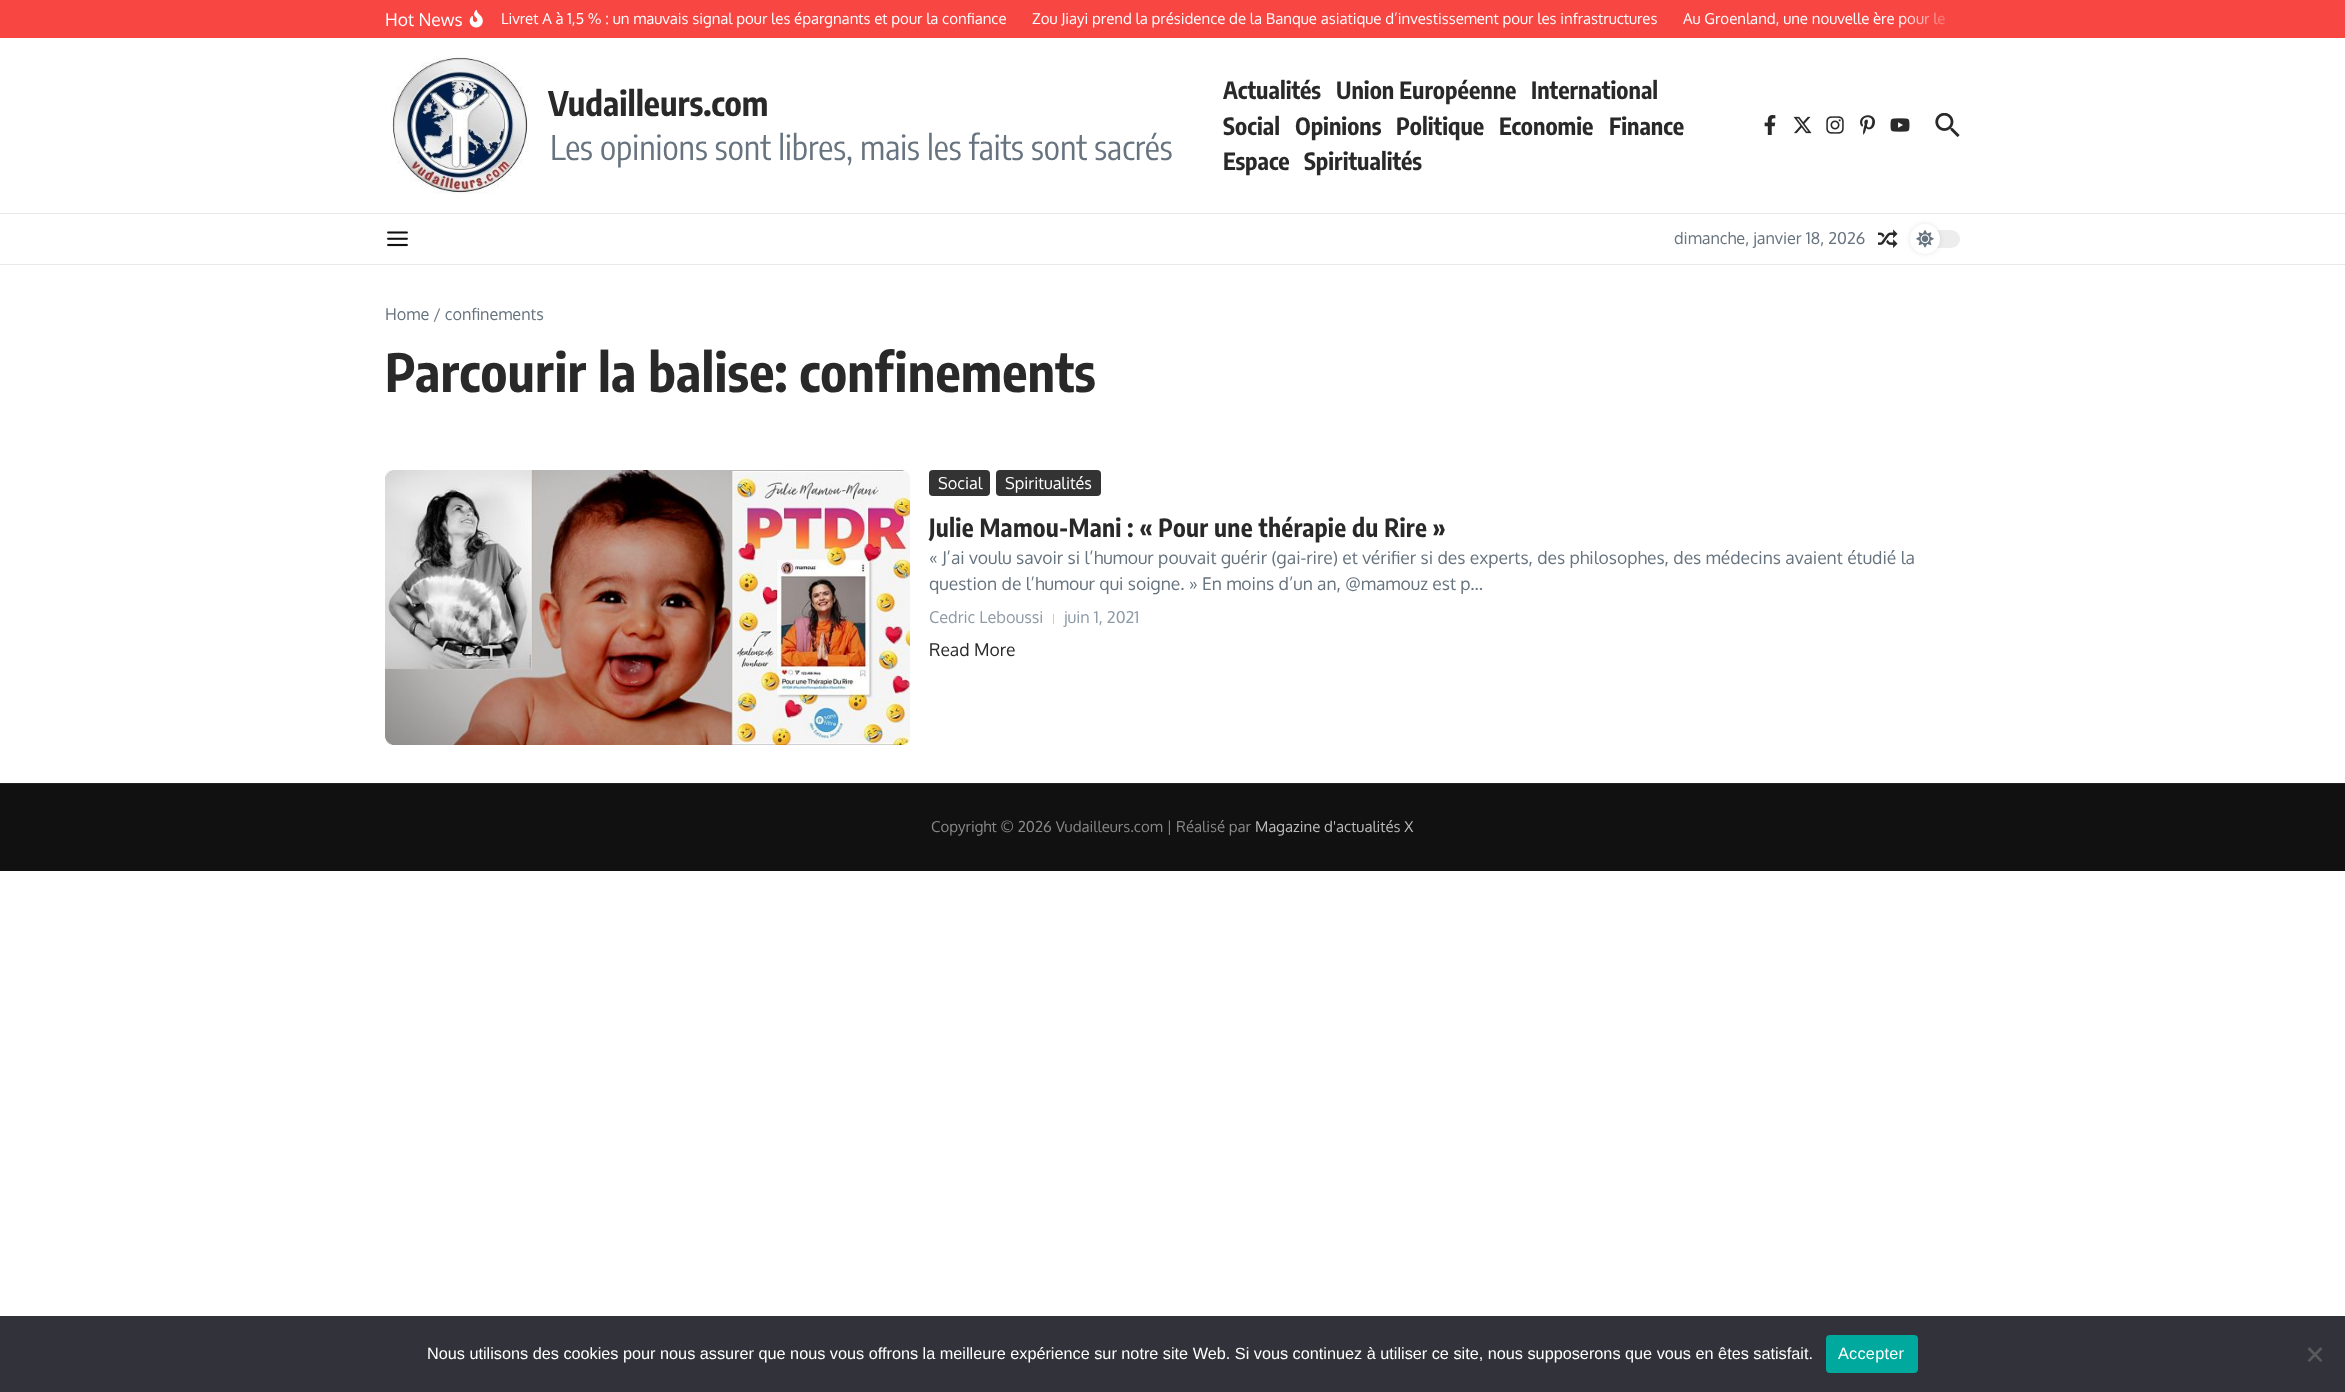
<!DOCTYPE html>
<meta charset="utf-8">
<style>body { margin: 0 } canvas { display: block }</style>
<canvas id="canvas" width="2345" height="1392"></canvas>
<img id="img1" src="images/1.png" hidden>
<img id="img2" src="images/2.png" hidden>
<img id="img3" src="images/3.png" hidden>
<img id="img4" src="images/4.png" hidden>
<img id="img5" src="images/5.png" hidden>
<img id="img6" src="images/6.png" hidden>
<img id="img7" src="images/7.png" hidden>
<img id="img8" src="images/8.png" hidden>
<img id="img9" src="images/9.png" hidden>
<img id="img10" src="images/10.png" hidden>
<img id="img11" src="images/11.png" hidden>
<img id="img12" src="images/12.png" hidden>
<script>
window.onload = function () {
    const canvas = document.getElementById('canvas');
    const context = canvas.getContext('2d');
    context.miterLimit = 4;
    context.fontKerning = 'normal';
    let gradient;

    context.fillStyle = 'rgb(255, 255, 255)';
    context.fillRect(0, 0, 2345, 1392);
    context.fillStyle = 'rgb(248, 70, 67)';
    context.fillRect(0, 0, 2345, 38);
    context.drawImage(document.getElementById('img1'), 469, 10, 14, 18);
    context.fillStyle = 'rgb(232, 232, 232)';
    context.fillRect(0, 213, 2345, 1);
    context.drawImage(document.getElementById('img2'), 391, 56, 138, 138);
    context.drawImage(document.getElementById('img3'), 1764, 115, 12, 20);
    context.drawImage(document.getElementById('img4'), 1793, 116, 19, 18);
    context.drawImage(document.getElementById('img5'), 1826, 116, 18, 18);
    context.drawImage(document.getElementById('img6'), 1860, 115, 15, 20);
    context.drawImage(document.getElementById('img7'), 1890, 118, 20, 14);
    context.drawImage(document.getElementById('img8'), 1935, 113, 25, 24);
    context.fillRect(0, 264, 2345, 1);
    context.drawImage(document.getElementById('img9'), 387, 231, 21, 16);
    context.drawImage(document.getElementById('img10'), 1878, 229, 20, 19);
    context.fillStyle = 'rgb(237, 237, 237)';
    context.beginPath();
    context.roundRect(1910, 230, 50, 18, 9);
    context.fill();
    context.fillStyle = 'rgba(0, 0, 0, 0.1)';
    context.filter = 'blur(2.5px)';
    context.beginPath();
    context.roundRect(1910, 224, 30, 30, 15);
    context.fill();
    context.filter = 'none';
    context.fillStyle = 'rgb(255, 255, 255)';
    context.beginPath();
    context.arc(1925, 239, 15, 0, 2 * Math.PI);
    context.fill();
    context.drawImage(document.getElementById('img11'), 1916, 230, 18, 18);
    context.drawImage(document.getElementById('img12'), 385, 470, 525, 275);
    context.fillStyle = 'rgb(51, 51, 51)';
    context.beginPath();
    context.roundRect(929, 470, 61, 26, 4);
    context.fill();
    context.beginPath();
    context.roundRect(996, 470, 105, 26, 4);
    context.fill();
    context.fillStyle = 'rgb(199, 205, 211)';
    context.fillRect(1053, 614, 1, 10);
    context.fillStyle = 'rgb(17, 17, 17)';
    context.fillRect(0, 784, 2345, 87);
    context.fillStyle = 'rgb(34, 34, 34)';
    context.fillRect(0, 783, 2345, 1);
    context.fillStyle = 'rgb(50, 50, 58)';
    context.fillRect(0, 1316, 2345, 76);
    context.fillStyle = 'rgb(0, 169, 157)';
    context.beginPath();
    context.roundRect(1826, 1335, 92, 38, 4);
    context.fill();
    context.fillStyle = 'rgb(89, 89, 93)';
    context.beginPath();
    context.moveTo(2320.5, 1347);
    context.lineTo(2322.5, 1349);
    context.lineTo(2309.5, 1362);
    context.lineTo(2307.5, 1360.5);
    context.closePath();
    context.fill();
    context.beginPath();
    context.moveTo(2307.5, 1349);
    context.lineTo(2309.5, 1347);
    context.lineTo(2322.5, 1360.5);
    context.lineTo(2320.5, 1362);
    context.closePath();
    context.fill();
    context.font = '17.5px Oxygen';
    context.fillStyle = 'rgb(255, 255, 255)';
    context.fillText('Hot News', 385, 26);
    context.font = '15px Oxygen';
    context.fillText('Livret A à 1,5 % : un mauvais signal pour les épargnants et pour la confiance', 501, 24);
    context.fillText('Zou Jiayi prend la présidence de la Banque asiatique d’investissement pour les infrastructures', 1032, 24);
    context.fillText('Au Groenland, une nouvelle ère pour le', 1683, 24);
    gradient = context.createLinearGradient(1898, 19, 1960, 19);
    gradient.addColorStop(0, 'rgba(248, 70, 67, 0)');
    gradient.addColorStop(1, 'rgb(248, 70, 67)');
    context.fillStyle = gradient;
    context.fillRect(1899, 12, 46, 15);
    context.font = 'bold 33.75px Encode Sans Condensed';
    context.fillStyle = 'rgb(41, 41, 41)';
    context.fillText('Vudailleurs.com', 548, 116);
    context.font = '33.75px Encode Sans Condensed';
    context.fillStyle = 'rgb(103, 115, 126)';
    context.fillText('Les opinions sont libres, mais les faits sont sacrés', 550, 160);
    context.font = 'bold 23.75px Encode Sans Condensed';
    context.fillStyle = 'rgb(41, 41, 41)';
    context.fillText('Actualités', 1223, 99);
    context.fillText('Union Européenne', 1336, 99);
    context.fillText('International', 1531, 99);
    context.fillText('Social', 1223, 135);
    context.fillText('Opinions', 1295, 135);
    context.fillText('Politique', 1396, 135);
    context.fillText('Economie', 1499, 135);
    context.fillText('Finance', 1609, 135);
    context.fillText('Espace', 1223, 170);
    context.fillText('Spiritualités', 1304, 170);
    context.font = '16.25px Oxygen';
    context.fillStyle = 'rgb(103, 115, 126)';
    context.fillText('dimanche, janvier 18, 2026', 1674, 244);
    context.fillText('Home / confinements', 385, 320);
    context.letterSpacing = '0.25px';
    context.font = 'bold 52.5px Encode Sans Condensed';
    context.fillStyle = 'rgb(41, 41, 41)';
    context.fillText('Parcourir la balise: confinements', 385, 392);
    context.letterSpacing = '0px';
    context.font = '16.25px Oxygen';
    context.fillStyle = 'rgb(255, 255, 255)';
    context.fillText('Social', 938, 489);
    context.fillText('Spiritualités', 1005, 489);
    context.letterSpacing = '0.25px';
    context.font = 'bold 25px Encode Sans Condensed';
    context.fillStyle = 'rgb(41, 41, 41)';
    context.fillText('Julie Mamou-Mani : « Pour une thérapie du Rire »', 929, 537);
    context.letterSpacing = '0px';
    context.font = '17.5px Oxygen';
    context.fillStyle = 'rgb(103, 115, 126)';
    context.fillText('« J’ai voulu savoir si l’humour pouvait guérir (gai-rire) et vérifier si des experts, des philosophes, des médecins avaient étudié la', 929, 564);
    context.fillText('question de l’humour qui soigne. » En moins d’un an, @mamouz est p...', 929, 590);
    context.font = '16.25px Oxygen';
    context.fillStyle = 'rgb(142, 155, 167)';
    context.fillText('Cedric Leboussi', 929, 623);
    context.fillText('juin 1, 2021', 1064, 623);
    context.font = '17.5px Oxygen';
    context.fillStyle = 'rgb(41, 41, 41)';
    context.fillText('Read More', 929, 656);
    context.font = '15px Oxygen';
    context.fillStyle = 'rgb(136, 136, 136)';
    context.fillText('Copyright © 2026 Vudailleurs.com | Réalisé par', 931, 832);
    context.fillStyle = 'rgb(188, 188, 188)';
    context.fillText('Magazine d\'actualités X', 1255, 832);
    context.font = '16.25px Liberation Sans';
    context.fillStyle = 'rgb(255, 255, 255)';
    context.fillText('Nous utilisons des cookies pour nous assurer que nous vous offrons la meilleure expérience sur notre site Web. Si vous continuez à utiliser ce site, nous supposerons que vous en êtes satisfait.', 427, 1359);
    context.letterSpacing = '0.25px';
    context.fillText('Accepter', 1838, 1359);
};
</script>
